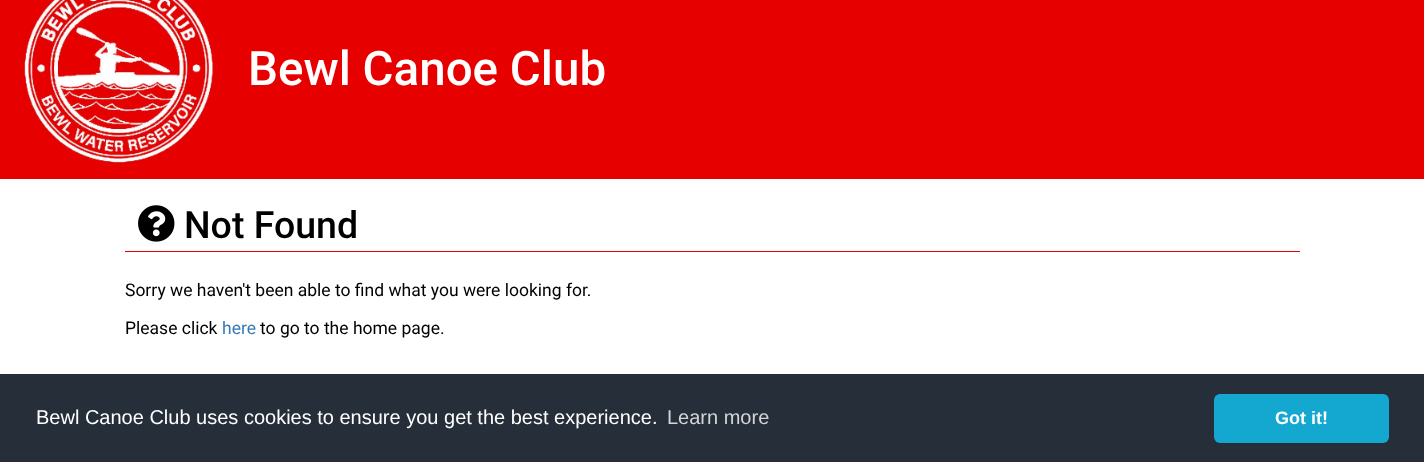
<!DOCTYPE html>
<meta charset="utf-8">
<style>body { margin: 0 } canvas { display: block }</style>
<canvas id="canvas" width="1424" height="462"></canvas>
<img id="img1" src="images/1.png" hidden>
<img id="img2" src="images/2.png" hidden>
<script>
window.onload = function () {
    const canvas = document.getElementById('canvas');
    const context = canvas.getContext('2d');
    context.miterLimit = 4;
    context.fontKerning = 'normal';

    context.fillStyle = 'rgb(255, 255, 255)';
    context.fillRect(0, 0, 1424, 462);
    context.fillStyle = 'rgb(230, 0, 0)';
    context.fillRect(0, 0, 1424, 179);
    context.drawImage(document.getElementById('img1'), 20, 0, 197, 167);
    context.fillRect(125, 251, 1175, 1);
    context.drawImage(document.getElementById('img2'), 138, 205, 37, 37);
    context.fillStyle = 'rgb(37, 46, 57)';
    context.fillRect(0, 374, 1424, 88);
    context.fillStyle = 'rgb(20, 167, 208)';
    context.beginPath();
    context.roundRect(1214, 394, 175, 49, 6);
    context.fill();
    context.font = '500 47.5px Roboto';
    context.fillStyle = 'rgb(255, 255, 255)';
    context.fillText('Bewl Canoe Club', 248, 85);
    context.font = '500 37.5px Roboto';
    context.fillStyle = 'rgb(0, 0, 0)';
    context.fillText('Not Found', 184, 238);
    context.font = '17.5px Roboto';
    context.fillText('Sorry we haven\'t been able to find what you were looking for.', 125, 296);
    context.fillText('Please click', 125, 334);
    context.fillStyle = 'rgb(51, 122, 183)';
    context.fillText('here', 222, 334);
    context.fillStyle = 'rgb(0, 0, 0)';
    context.fillText('to go to the home page.', 260, 334);
    context.font = '20px Liberation Sans';
    context.fillStyle = 'rgb(255, 255, 255)';
    context.fillText('Bewl Canoe Club uses cookies to ensure you get the best experience.', 36, 424);
    context.fillStyle = 'rgb(211, 213, 215)';
    context.fillText('Learn more', 667, 424);
    context.font = 'bold 18px Liberation Sans';
    context.fillStyle = 'rgb(255, 255, 255)';
    context.fillText('Got it!', 1275, 424);
};
</script>
